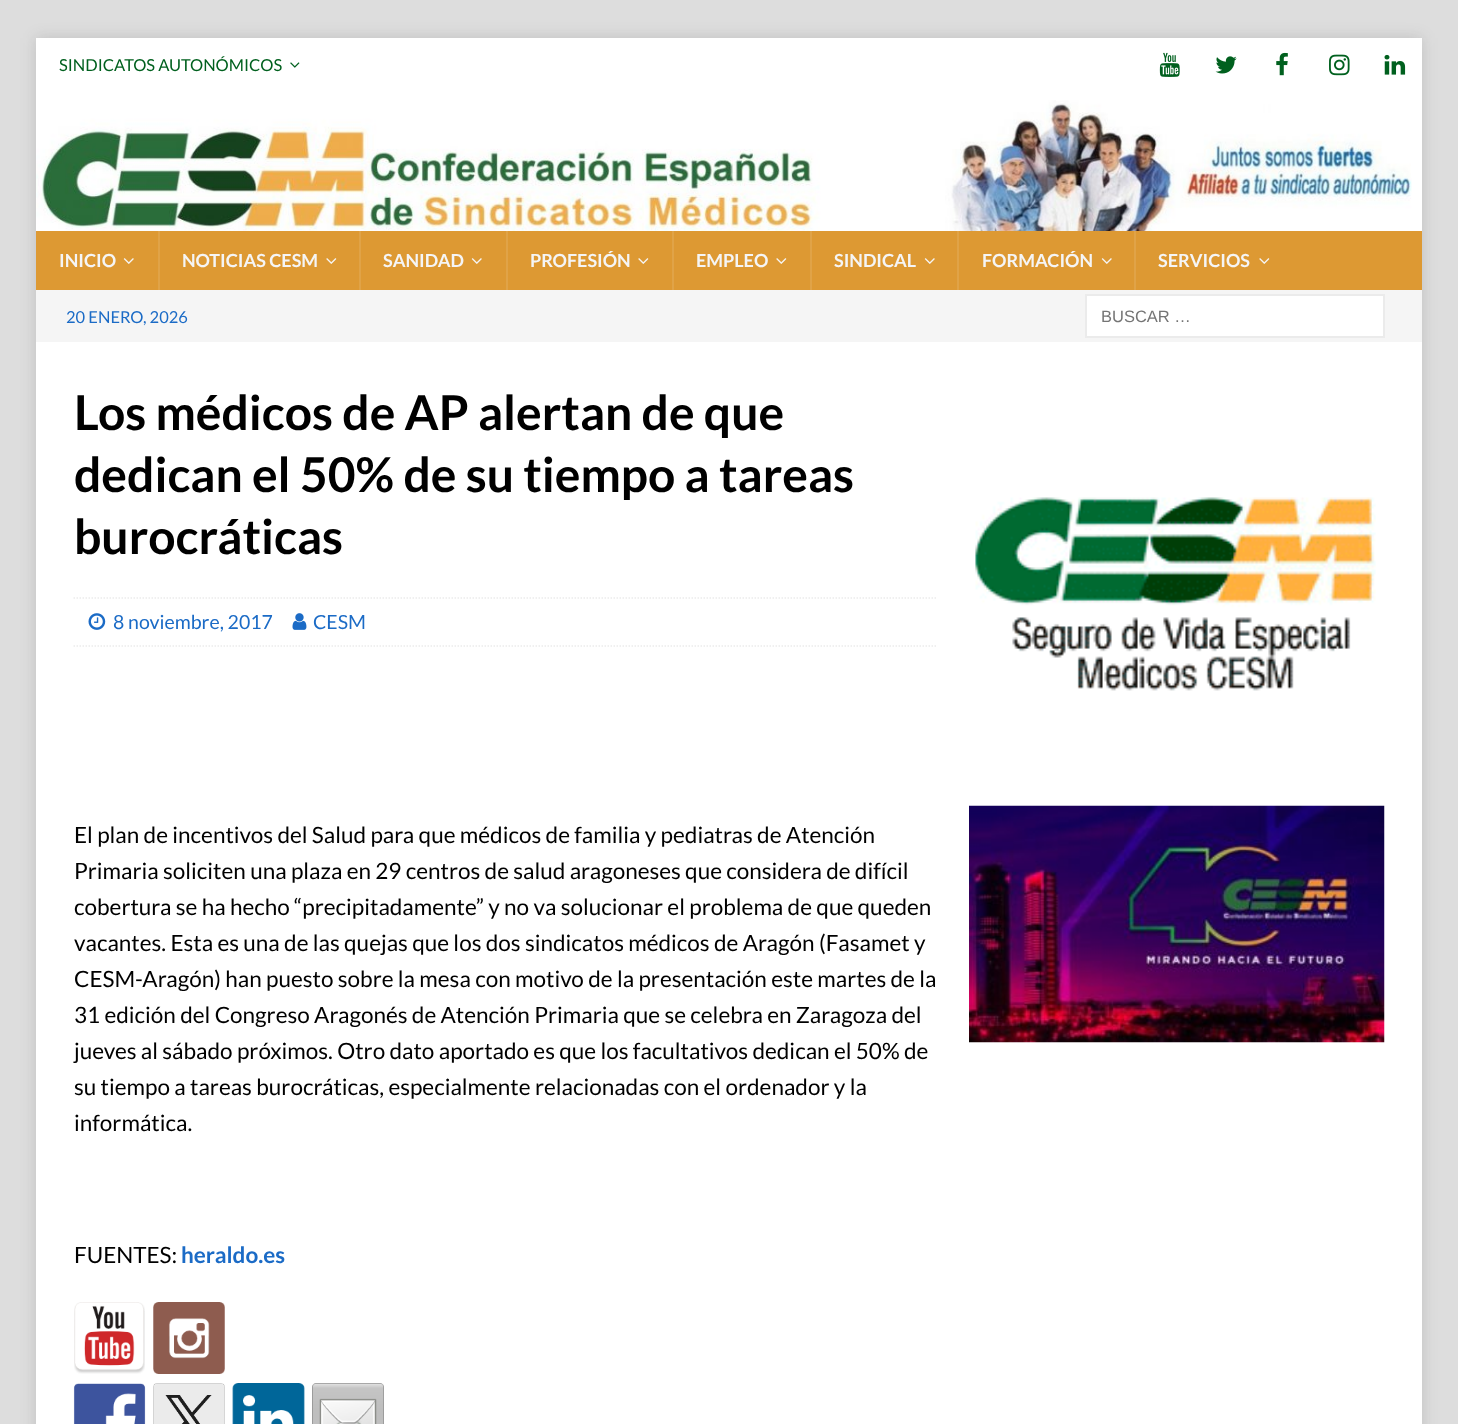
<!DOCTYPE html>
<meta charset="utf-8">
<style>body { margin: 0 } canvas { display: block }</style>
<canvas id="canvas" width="1458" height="1424"></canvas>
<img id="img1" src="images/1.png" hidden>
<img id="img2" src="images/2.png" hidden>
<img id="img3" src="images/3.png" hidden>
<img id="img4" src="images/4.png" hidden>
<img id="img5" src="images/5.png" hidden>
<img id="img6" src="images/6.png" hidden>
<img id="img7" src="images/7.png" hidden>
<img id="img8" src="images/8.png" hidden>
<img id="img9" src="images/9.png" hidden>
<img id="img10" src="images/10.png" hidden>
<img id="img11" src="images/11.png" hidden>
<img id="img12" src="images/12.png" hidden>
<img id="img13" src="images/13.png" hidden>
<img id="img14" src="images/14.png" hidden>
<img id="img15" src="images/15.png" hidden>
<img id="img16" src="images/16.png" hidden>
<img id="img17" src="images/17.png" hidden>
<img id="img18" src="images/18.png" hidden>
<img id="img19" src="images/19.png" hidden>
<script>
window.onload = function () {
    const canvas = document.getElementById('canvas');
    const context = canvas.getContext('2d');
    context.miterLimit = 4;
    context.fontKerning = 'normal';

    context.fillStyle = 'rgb(221, 221, 221)';
    context.fillRect(0, 0, 1458, 1424);
    context.fillStyle = 'rgba(50, 50, 50, 0.17)';
    context.filter = 'blur(7.5px)';
    context.beginPath();
    context.rect(36, 38, 1386, 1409);
    context.fill();
    context.filter = 'none';
    context.fillStyle = 'rgb(255, 255, 255)';
    context.fillRect(36, 38, 1386, 193);
    context.drawImage(document.getElementById('img1'), 290, 62, 10, 6);
    context.drawImage(document.getElementById('img2'), 1159, 52, 21, 25);
    context.drawImage(document.getElementById('img3'), 1215, 56, 22, 18);
    context.drawImage(document.getElementById('img4'), 1276, 52, 12, 24);
    context.drawImage(document.getElementById('img5'), 1329, 54, 21, 22);
    context.drawImage(document.getElementById('img6'), 1384, 54, 22, 21);
    context.drawImage(document.getElementById('img7'), 36, 100, 1376, 131);
    context.fillStyle = 'rgb(221, 153, 51)';
    context.fillRect(36, 231, 1386, 59);
    context.drawImage(document.getElementById('img8'), 123, 258, 11, 6);
    context.fillStyle = 'rgb(224, 163, 71)';
    context.fillRect(158, 231, 2, 59);
    context.drawImage(document.getElementById('img9'), 326, 258, 11, 6);
    context.fillRect(359, 231, 2, 59);
    context.drawImage(document.getElementById('img8'), 471, 258, 11, 6);
    context.fillRect(506, 231, 2, 59);
    context.drawImage(document.getElementById('img9'), 638, 258, 11, 6);
    context.fillRect(672, 231, 2, 59);
    context.drawImage(document.getElementById('img9'), 776, 258, 11, 6);
    context.fillRect(810, 231, 2, 59);
    context.drawImage(document.getElementById('img8'), 924, 258, 11, 6);
    context.fillRect(957, 231, 2, 59);
    context.drawImage(document.getElementById('img8'), 1101, 258, 11, 6);
    context.fillRect(1134, 231, 2, 59);
    context.drawImage(document.getElementById('img9'), 1259, 258, 11, 6);
    context.fillStyle = 'rgb(245, 245, 245)';
    context.fillRect(36, 290, 1386, 52);
    context.fillStyle = 'rgb(255, 255, 255)';
    context.beginPath();
    context.rect(1086, 295, 298, 42);
    context.fill();
    context.strokeStyle = 'rgb(235, 235, 235)';
    context.lineWidth = 2;
    context.stroke();
    context.fillRect(36, 342, 1386, 1082);
    context.beginPath();
    context.moveTo(73.5, 598);
    context.lineTo(936, 598);
    context.lineWidth = 1.5;
    context.setLineDash([1.5, 1.5]);
    context.stroke();
    context.beginPath();
    context.moveTo(73.5, 646);
    context.lineTo(936, 646);
    context.stroke();
    context.drawImage(document.getElementById('img10'), 88, 613, 18, 17);
    context.drawImage(document.getElementById('img11'), 292, 613, 15, 17);
    context.drawImage(document.getElementById('img12'), 74, 1302, 71, 72);
    context.drawImage(document.getElementById('img13'), 153, 1302, 72, 72);
    context.drawImage(document.getElementById('img14'), 73, 1383, 73, 41);
    context.drawImage(document.getElementById('img15'), 153, 1383, 72, 41);
    context.drawImage(document.getElementById('img16'), 232, 1383, 73, 41);
    context.drawImage(document.getElementById('img17'), 312, 1383, 72, 41);
    context.drawImage(document.getElementById('img18'), 975, 497, 401, 194);
    context.drawImage(document.getElementById('img19'), 969, 805, 416, 238);
    context.font = '16.5px Lato';
    context.fillStyle = 'rgb(0, 96, 30)';
    context.fillText('SINDICATOS AUTONÓMICOS', 59, 71);
    context.font = 'bold 18px Lato';
    context.fillStyle = 'rgb(245, 245, 245)';
    context.fillText('INICIO', 59, 267);
    context.fillText('NOTICIAS CESM', 182, 267);
    context.fillText('SANIDAD', 383, 267);
    context.fillText('PROFESIÓN', 530, 267);
    context.fillText('EMPLEO', 696, 267);
    context.fillText('SINDICAL', 834, 267);
    context.fillText('FORMACIÓN', 982, 267);
    context.fillText('SERVICIOS', 1158, 267);
    context.font = '16.5px Lato';
    context.fillStyle = 'rgb(27, 107, 198)';
    context.fillText('20 ENERO, 2026', 66, 323);
    context.font = '16.5px Liberation Sans';
    context.fillStyle = 'rgb(117, 117, 117)';
    context.fillText('BUSCAR …', 1101, 322);
    context.font = 'bold 48px Lato';
    context.fillStyle = 'rgb(0, 0, 0)';
    context.fillText('Los médicos de AP alertan de que', 74, 430);
    context.fillText('dedican el 50% de su tiempo a tareas', 74, 492);
    context.fillText('burocráticas', 74, 554);
    context.font = '19.5px Lato';
    context.fillStyle = 'rgb(27, 107, 198)';
    context.fillText('8 noviembre, 2017', 113, 629);
    context.fillText('CESM', 313, 629);
    context.font = '22.5px Lato';
    context.fillStyle = 'rgb(0, 0, 0)';
    context.fillText('El plan de incentivos del Salud para que médicos de familia y pediatras de Atención', 74, 843);
    context.fillText('Primaria soliciten una plaza en 29 centros de salud aragoneses que considera de difícil', 74, 879);
    context.fillText('cobertura se ha hecho “precipitadamente” y no va solucionar el problema de que queden', 74, 915);
    context.fillText('vacantes. Esta es una de las quejas que los dos sindicatos médicos de Aragón (Fasamet y', 74, 951);
    context.fillText('CESM-Aragón) han puesto sobre la mesa con motivo de la presentación este martes de la', 74, 987);
    context.fillText('31 edición del Congreso Aragonés de Atención Primaria que se celebra en Zaragoza del', 74, 1023);
    context.fillText('jueves al sábado próximos. Otro dato aportado es que los facultativos dedican el 50% de', 74, 1059);
    context.fillText('su tiempo a tareas burocráticas, especialmente relacionadas con el ordenador y la', 74, 1095);
    context.fillText('informática.', 74, 1131);
    context.fillText('FUENTES:', 74, 1263);
    context.font = 'bold 22.5px Lato';
    context.fillStyle = 'rgb(27, 107, 198)';
    context.fillText('heraldo.es', 181, 1263);
};
</script>
